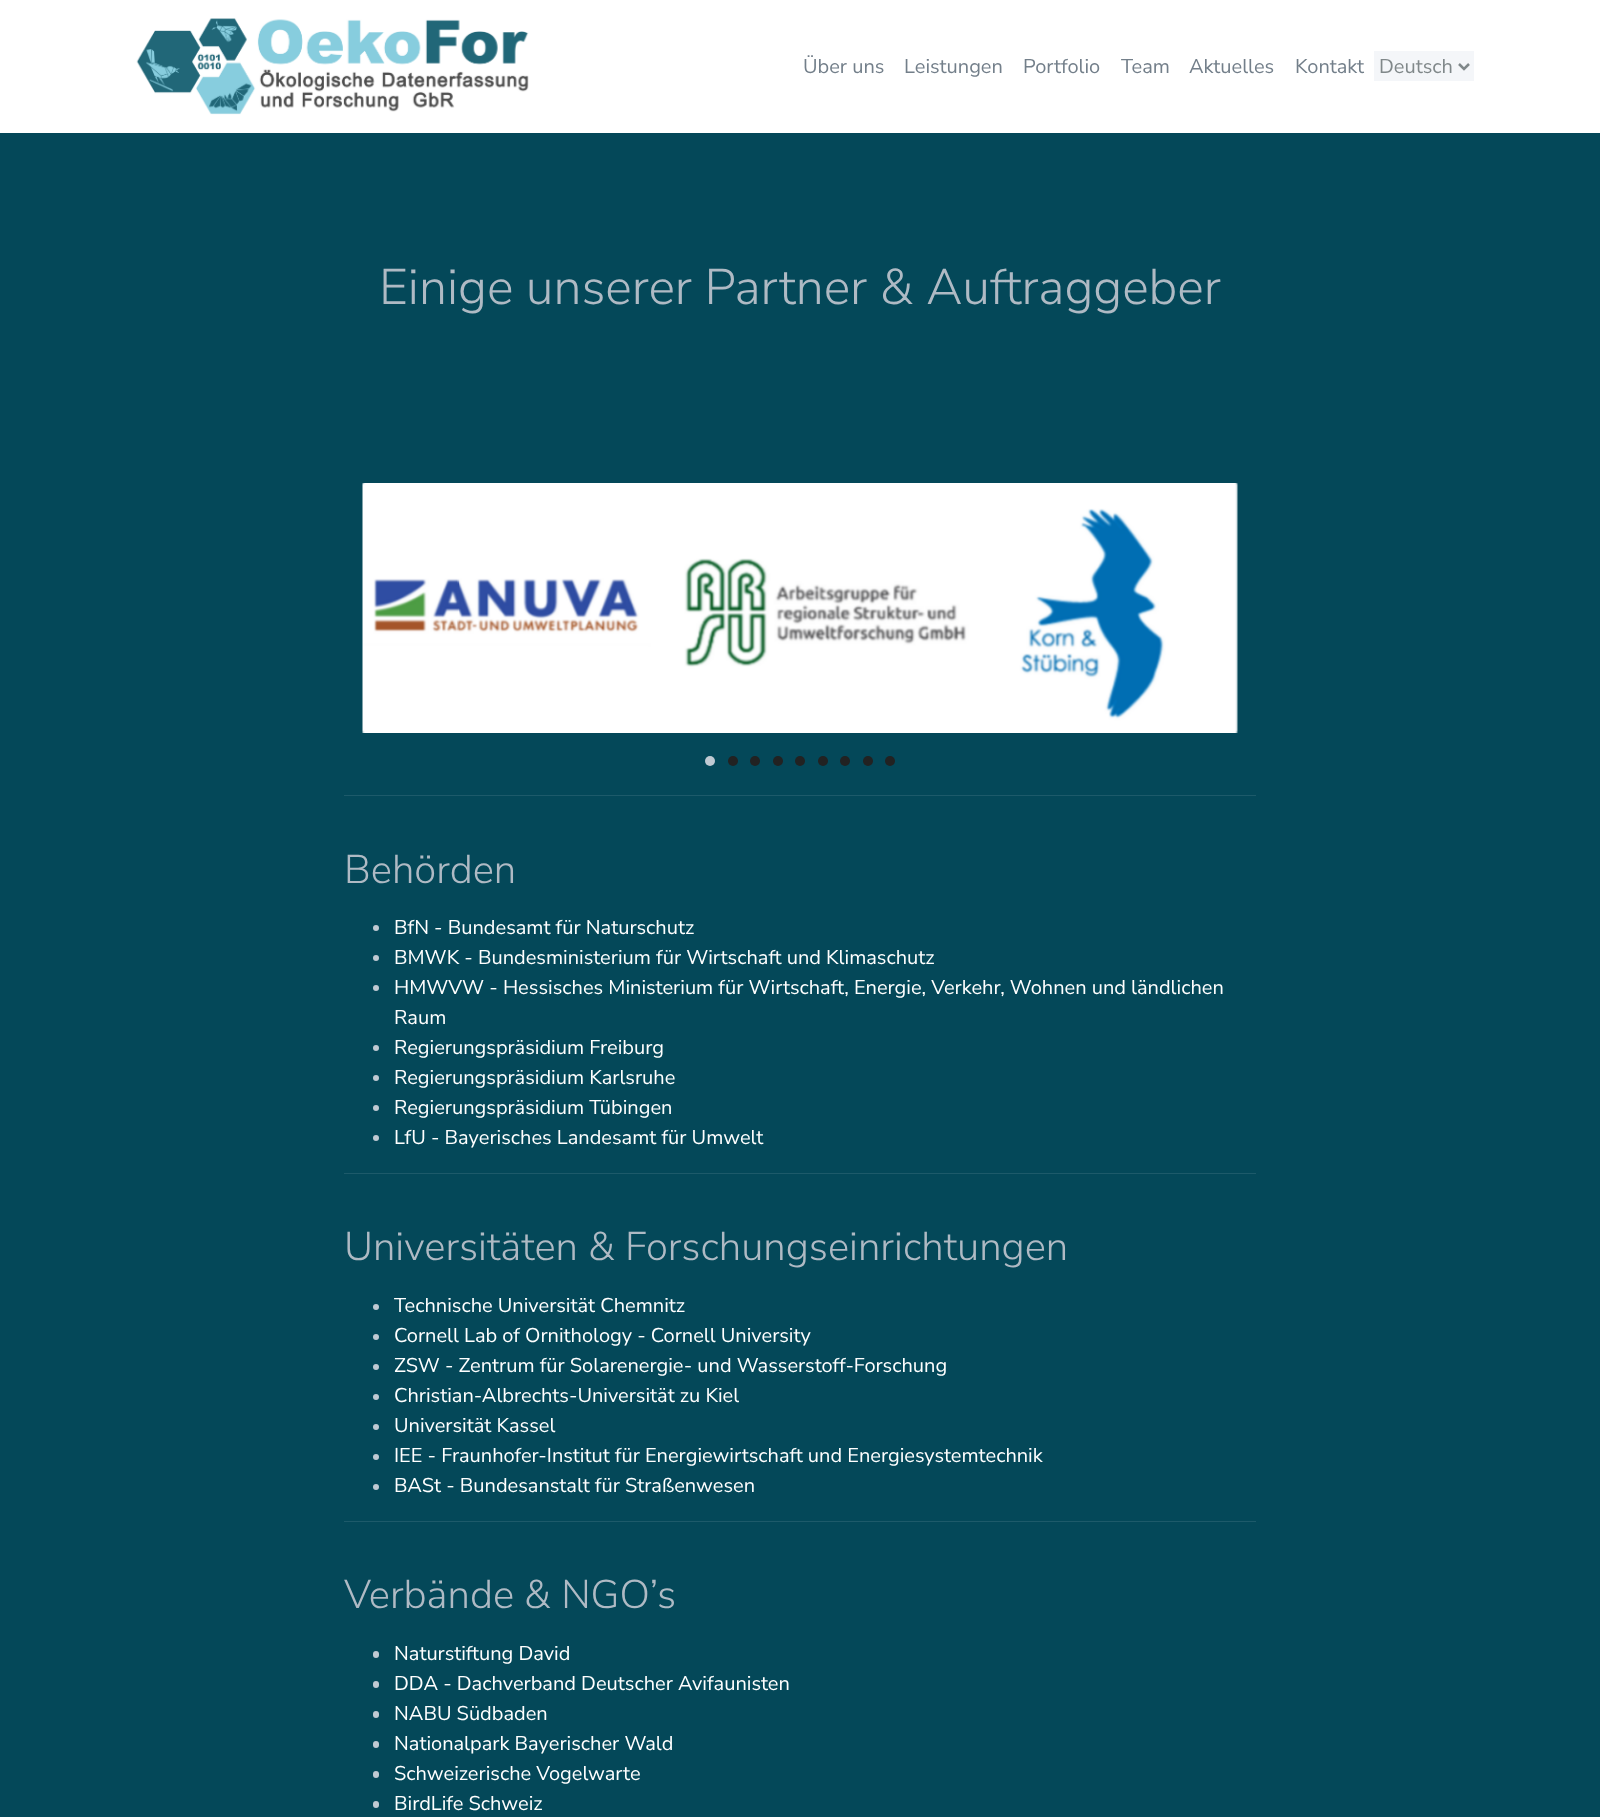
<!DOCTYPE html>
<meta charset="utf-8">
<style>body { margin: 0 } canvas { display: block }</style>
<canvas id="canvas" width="1600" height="1817"></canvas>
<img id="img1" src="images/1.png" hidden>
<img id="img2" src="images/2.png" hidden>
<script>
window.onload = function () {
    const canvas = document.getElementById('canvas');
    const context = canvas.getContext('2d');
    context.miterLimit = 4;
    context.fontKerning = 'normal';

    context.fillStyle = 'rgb(4, 72, 89)';
    context.fillRect(0, 0, 1600, 1817);
    context.fillStyle = 'rgb(255, 255, 255)';
    context.fillRect(0, 0, 1600, 133);
    context.drawImage(document.getElementById('img1'), 136, 18, 393, 97);
    context.fillStyle = 'rgb(244, 246, 249)';
    context.fillRect(1374, 51, 100, 30);
    context.beginPath();
    context.moveTo(1459, 64);
    context.lineTo(1464, 69);
    context.lineTo(1469, 64);
    context.strokeStyle = 'rgb(128, 136, 138)';
    context.lineWidth = 2.5;
    context.stroke();
    context.drawImage(document.getElementById('img2'), 362, 483, 876, 250);
    context.fillStyle = 'rgb(192, 202, 211)';
    context.beginPath();
    context.arc(710, 761, 5, 0, 2 * Math.PI);
    context.fill();
    context.fillStyle = 'rgb(34, 34, 34)';
    context.beginPath();
    context.arc(733, 761, 5, 0, 2 * Math.PI);
    context.fill();
    context.beginPath();
    context.arc(755, 761, 5, 0, 2 * Math.PI);
    context.fill();
    context.beginPath();
    context.arc(778, 761, 5, 0, 2 * Math.PI);
    context.fill();
    context.beginPath();
    context.arc(800, 761, 5, 0, 2 * Math.PI);
    context.fill();
    context.beginPath();
    context.arc(823, 761, 5, 0, 2 * Math.PI);
    context.fill();
    context.beginPath();
    context.arc(845, 761, 5, 0, 2 * Math.PI);
    context.fill();
    context.beginPath();
    context.arc(868, 761, 5, 0, 2 * Math.PI);
    context.fill();
    context.beginPath();
    context.arc(890, 761, 5, 0, 2 * Math.PI);
    context.fill();
    context.fillStyle = 'rgb(29, 90, 106)';
    context.fillRect(344, 795, 912, 1);
    context.fillStyle = 'rgb(192, 202, 211)';
    context.beginPath();
    context.arc(376, 928, 3, 0, 2 * Math.PI);
    context.fill();
    context.beginPath();
    context.arc(376, 958, 3, 0, 2 * Math.PI);
    context.fill();
    context.beginPath();
    context.arc(376, 988, 3, 0, 2 * Math.PI);
    context.fill();
    context.beginPath();
    context.arc(376, 1048, 3, 0, 2 * Math.PI);
    context.fill();
    context.beginPath();
    context.arc(376, 1078, 3, 0, 2 * Math.PI);
    context.fill();
    context.beginPath();
    context.arc(376, 1108, 3, 0, 2 * Math.PI);
    context.fill();
    context.beginPath();
    context.arc(376, 1138, 3, 0, 2 * Math.PI);
    context.fill();
    context.fillStyle = 'rgb(29, 90, 106)';
    context.fillRect(344, 1173, 912, 1);
    context.fillStyle = 'rgb(192, 202, 211)';
    context.beginPath();
    context.arc(376, 1307, 3, 0, 2 * Math.PI);
    context.fill();
    context.beginPath();
    context.arc(376, 1337, 3, 0, 2 * Math.PI);
    context.fill();
    context.beginPath();
    context.arc(376, 1367, 3, 0, 2 * Math.PI);
    context.fill();
    context.beginPath();
    context.arc(376, 1397, 3, 0, 2 * Math.PI);
    context.fill();
    context.beginPath();
    context.arc(376, 1427, 3, 0, 2 * Math.PI);
    context.fill();
    context.beginPath();
    context.arc(376, 1457, 3, 0, 2 * Math.PI);
    context.fill();
    context.beginPath();
    context.arc(376, 1487, 3, 0, 2 * Math.PI);
    context.fill();
    context.fillStyle = 'rgb(29, 90, 106)';
    context.fillRect(344, 1521, 912, 1);
    context.fillStyle = 'rgb(192, 202, 211)';
    context.beginPath();
    context.roundRect(373, 1651, 6, 7, 3);
    context.fill();
    context.beginPath();
    context.roundRect(373, 1681, 6, 7, 3);
    context.fill();
    context.beginPath();
    context.roundRect(373, 1711, 6, 7, 3);
    context.fill();
    context.beginPath();
    context.roundRect(373, 1741, 6, 7, 3);
    context.fill();
    context.beginPath();
    context.roundRect(373, 1771, 6, 7, 3);
    context.fill();
    context.beginPath();
    context.roundRect(373, 1801, 6, 7, 3);
    context.fill();
    context.font = '200 20px "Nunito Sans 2"';
    context.fillStyle = 'rgb(115, 127, 138)';
    context.fillText('Über uns', 803, 73);
    context.fillText('Leistungen', 904, 73);
    context.fillText('Portfolio', 1023, 73);
    context.fillText('Team', 1121, 73);
    context.fillText('Aktuelles', 1189, 73);
    context.fillText('Kontakt', 1295, 73);
    context.fillStyle = 'rgb(128, 136, 138)';
    context.fillText('Deutsch', 1379, 73);
    context.font = '200 50px Nunito Sans';
    context.fillStyle = 'rgb(175, 186, 196)';
    context.fillText('Einige unserer Partner & Auftraggeber', 379, 304);
    context.font = '200 40px Nunito Sans';
    context.fillText('Behörden', 344, 883);
    context.font = '200 20px "Nunito Sans 2"';
    context.fillStyle = 'rgb(255, 255, 255)';
    context.fillText('BfN - Bundesamt für Naturschutz', 394, 934);
    context.fillText('BMWK - Bundesministerium für Wirtschaft und Klimaschutz', 394, 964);
    context.fillText('HMWVW - Hessisches Ministerium für Wirtschaft, Energie, Verkehr, Wohnen und ländlichen', 394, 994);
    context.fillText('Raum', 394, 1024);
    context.fillText('Regierungspräsidium Freiburg', 394, 1054);
    context.fillText('Regierungspräsidium Karlsruhe', 394, 1084);
    context.fillText('Regierungspräsidium Tübingen', 394, 1114);
    context.fillText('LfU - Bayerisches Landesamt für Umwelt', 394, 1144);
    context.font = '200 40px Nunito Sans';
    context.fillStyle = 'rgb(175, 186, 196)';
    context.fillText('Universitäten & Forschungseinrichtungen', 344, 1260);
    context.font = '200 20px "Nunito Sans 2"';
    context.fillStyle = 'rgb(255, 255, 255)';
    context.fillText('Technische Universität Chemnitz', 394, 1312);
    context.fillText('Cornell Lab of Ornithology - Cornell University', 394, 1342);
    context.fillText('ZSW - Zentrum für Solarenergie- und Wasserstoff-Forschung', 394, 1372);
    context.fillText('Christian-Albrechts-Universität zu Kiel', 394, 1402);
    context.fillText('Universität Kassel', 394, 1432);
    context.fillText('IEE - Fraunhofer-Institut für Energiewirtschaft und Energiesystemtechnik', 394, 1462);
    context.fillText('BASt - Bundesanstalt für Straßenwesen', 394, 1492);
    context.font = '200 40px Nunito Sans';
    context.fillStyle = 'rgb(175, 186, 196)';
    context.fillText('Verbände & NGO’s', 344, 1608);
    context.font = '200 20px "Nunito Sans 2"';
    context.fillStyle = 'rgb(255, 255, 255)';
    context.fillText('Naturstiftung David', 394, 1660);
    context.fillText('DDA - Dachverband Deutscher Avifaunisten', 394, 1690);
    context.fillText('NABU Südbaden', 394, 1720);
    context.fillText('Nationalpark Bayerischer Wald', 394, 1750);
    context.fillText('Schweizerische Vogelwarte', 394, 1780);
    context.fillText('BirdLife Schweiz', 394, 1810);
};
</script>
